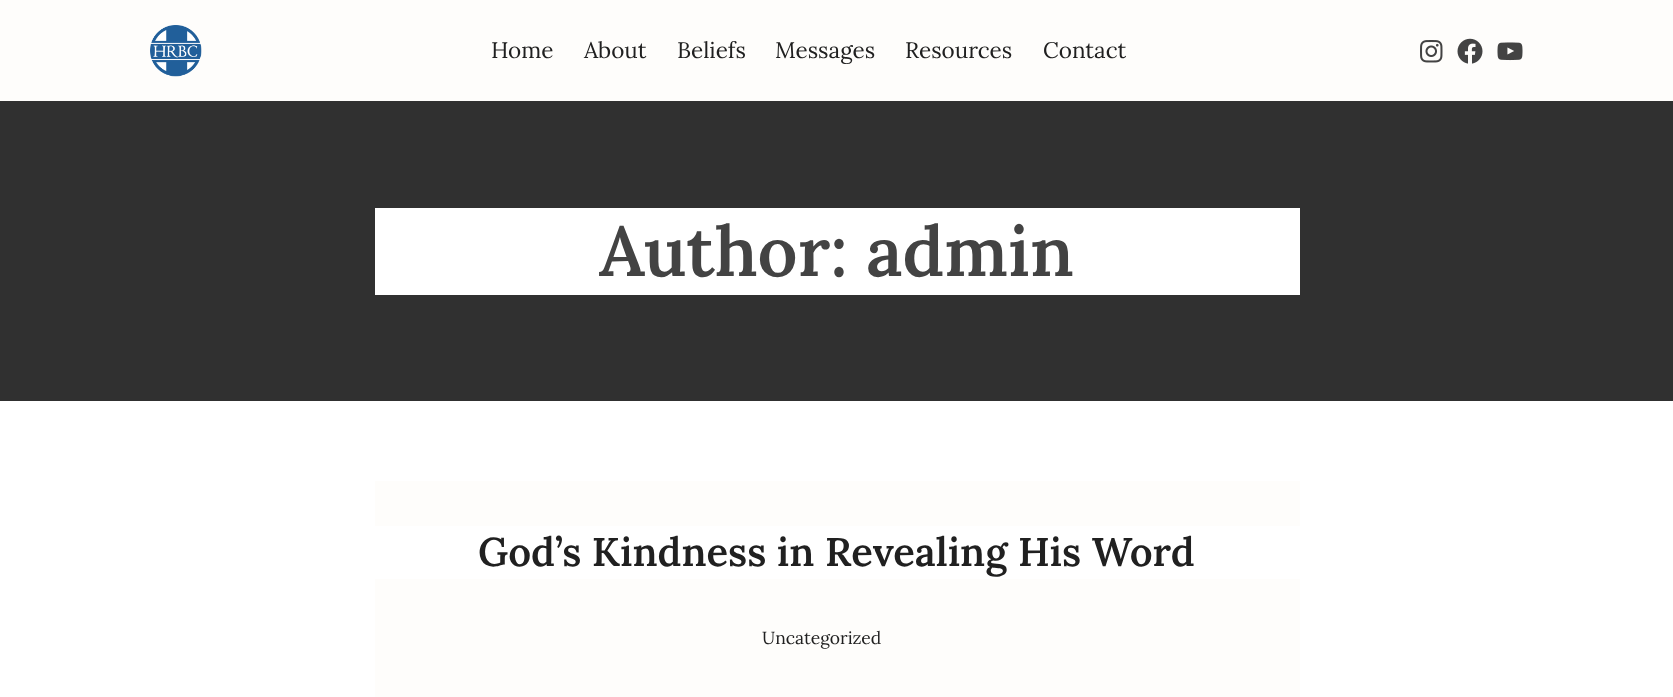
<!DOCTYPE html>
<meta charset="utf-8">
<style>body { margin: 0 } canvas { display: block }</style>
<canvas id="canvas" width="1673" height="697"></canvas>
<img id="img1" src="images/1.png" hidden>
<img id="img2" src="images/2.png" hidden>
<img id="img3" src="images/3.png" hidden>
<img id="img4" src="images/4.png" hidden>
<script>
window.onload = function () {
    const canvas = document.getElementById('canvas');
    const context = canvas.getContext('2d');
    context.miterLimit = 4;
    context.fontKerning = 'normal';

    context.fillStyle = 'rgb(255, 255, 255)';
    context.fillRect(0, 0, 1673, 697);
    context.fillStyle = 'rgb(254, 253, 251)';
    context.fillRect(0, 0, 1673, 101);
    context.drawImage(document.getElementById('img1'), 150, 25, 52, 52);
    context.drawImage(document.getElementById('img2'), 1420, 40, 23, 23);
    context.drawImage(document.getElementById('img3'), 1457, 38, 26, 26);
    context.drawImage(document.getElementById('img4'), 1497, 42, 26, 19);
    context.fillStyle = 'rgb(48, 48, 48)';
    context.fillRect(0, 101, 1673, 300);
    context.fillStyle = 'rgb(255, 255, 255)';
    context.fillRect(375, 208, 925, 87);
    context.fillStyle = 'rgb(254, 253, 251)';
    context.fillRect(375, 481, 925, 216);
    context.fillStyle = 'rgb(255, 255, 255)';
    context.fillRect(375, 526, 925, 53);
    context.font = '22.5px Lora';
    context.fillStyle = 'rgb(32, 32, 32)';
    context.fillText('Home', 491, 58);
    context.fillText('About', 584, 58);
    context.fillText('Beliefs', 677, 58);
    context.fillText('Messages', 775, 58);
    context.fillText('Resources', 905, 58);
    context.fillText('Contact', 1043, 58);
    context.font = '600 70px Lora';
    context.fillStyle = 'rgb(67, 67, 67)';
    context.fillText('Author: admin', 599, 276);
    context.font = '600 40px Lora';
    context.fillStyle = 'rgb(32, 32, 32)';
    context.fillText('God’s Kindness in Revealing His Word', 478, 566);
    context.font = '17.5px Lora';
    context.fillText('Uncategorized', 762, 644);
};
</script>
